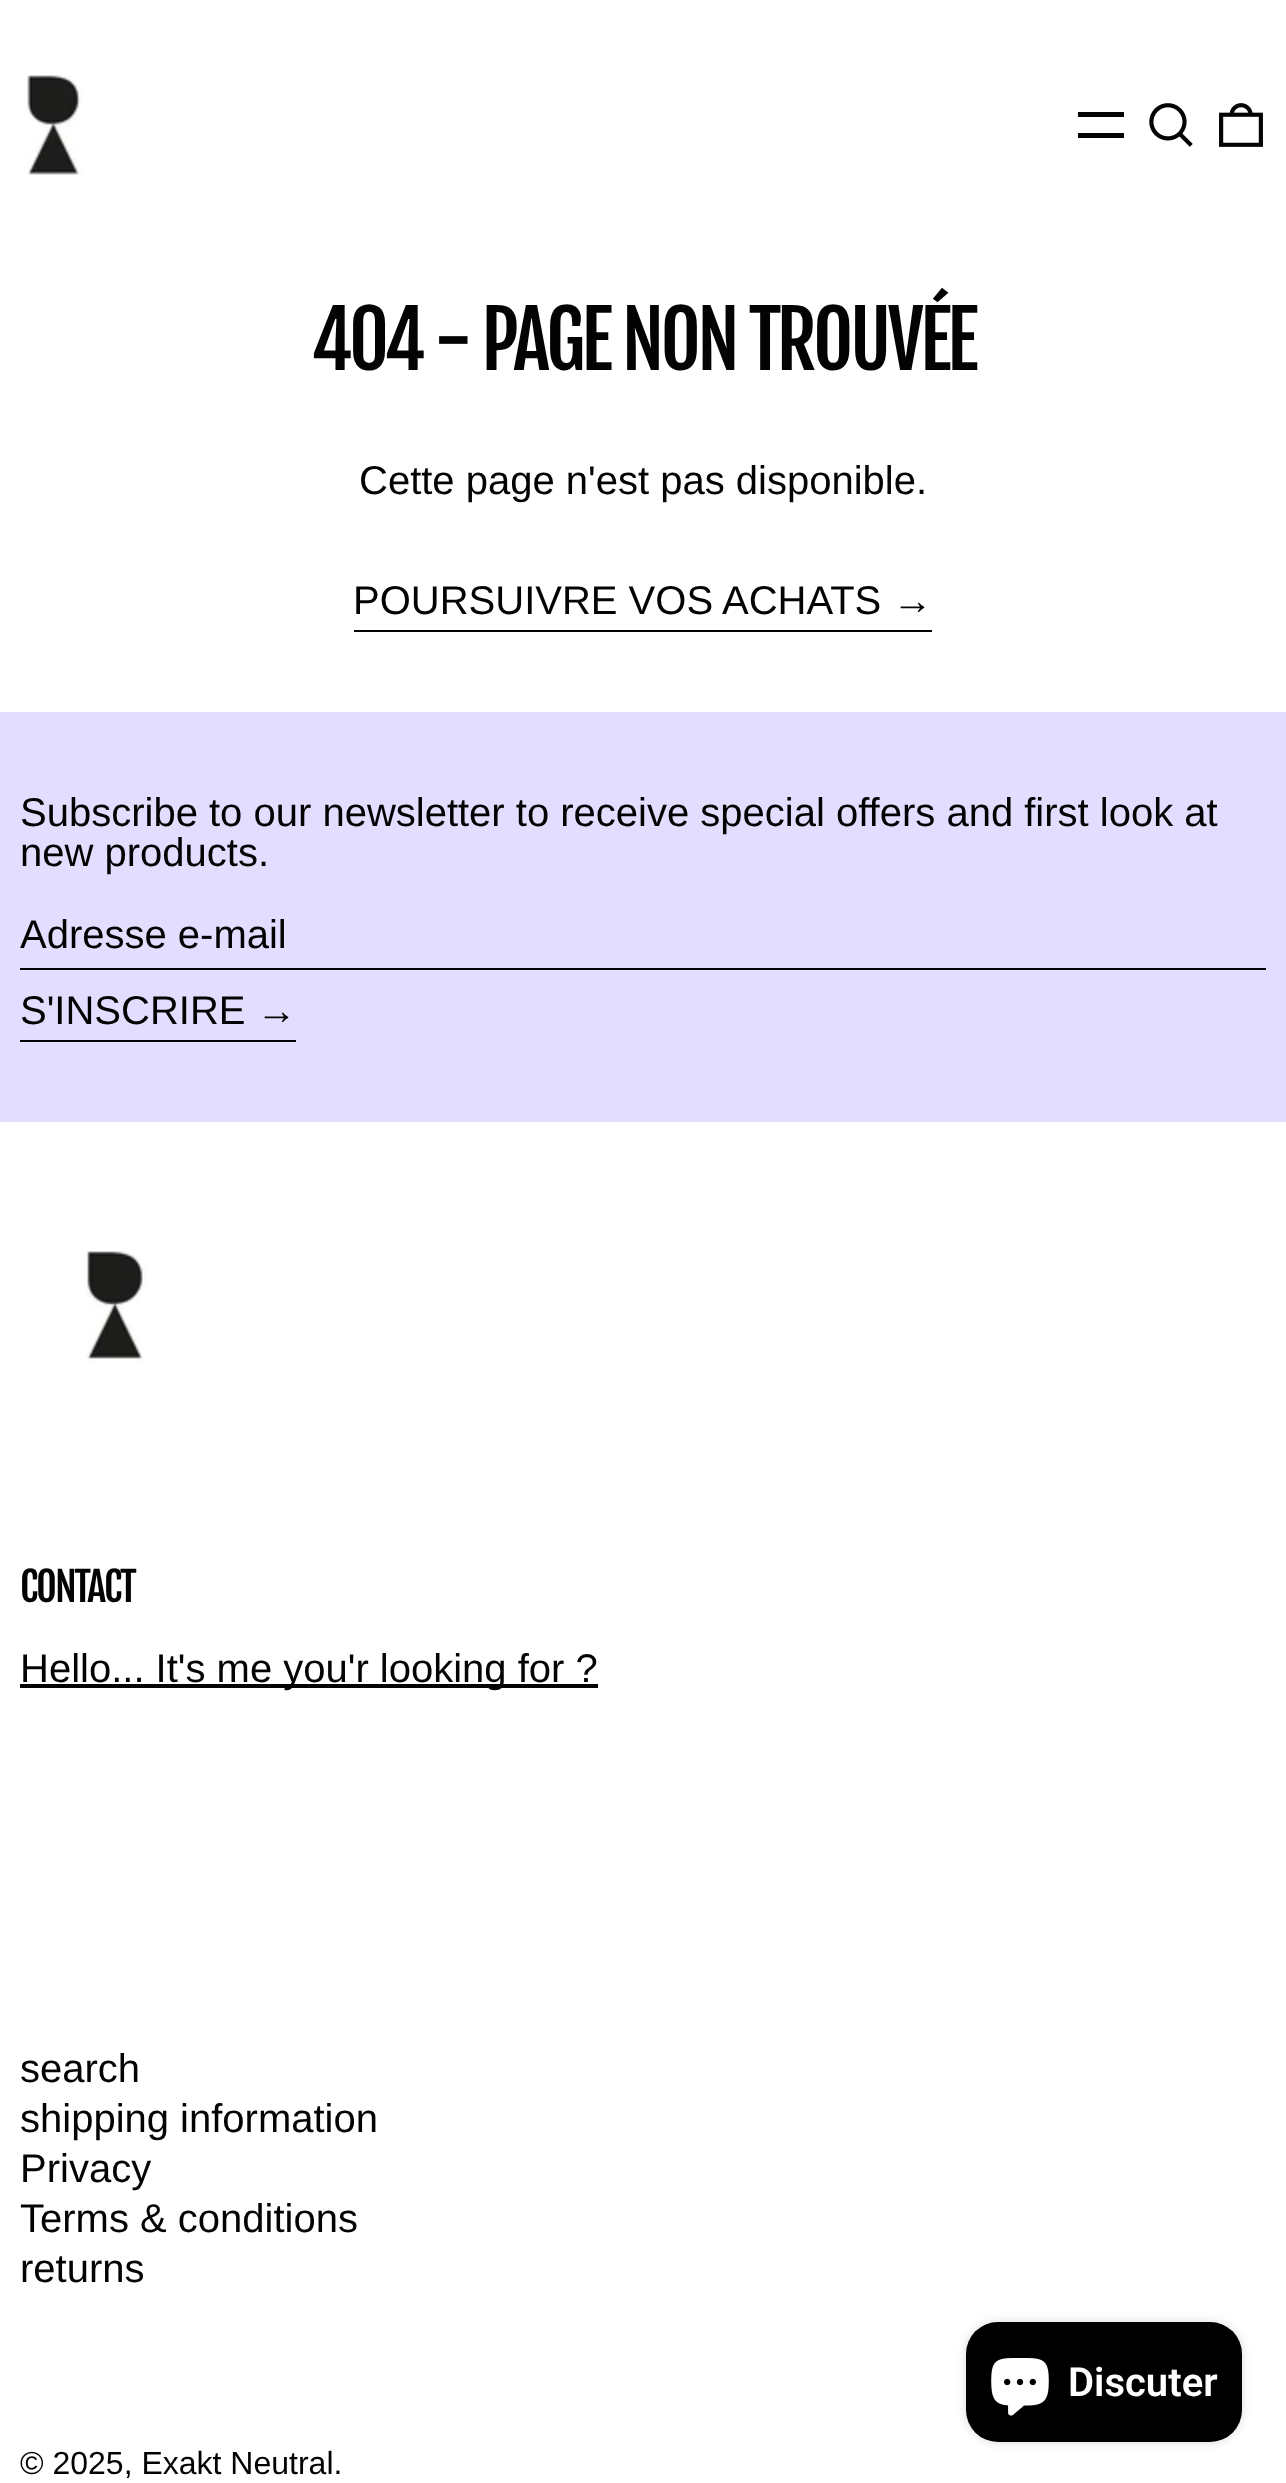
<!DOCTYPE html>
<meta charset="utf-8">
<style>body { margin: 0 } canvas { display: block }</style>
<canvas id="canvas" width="1286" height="2483"></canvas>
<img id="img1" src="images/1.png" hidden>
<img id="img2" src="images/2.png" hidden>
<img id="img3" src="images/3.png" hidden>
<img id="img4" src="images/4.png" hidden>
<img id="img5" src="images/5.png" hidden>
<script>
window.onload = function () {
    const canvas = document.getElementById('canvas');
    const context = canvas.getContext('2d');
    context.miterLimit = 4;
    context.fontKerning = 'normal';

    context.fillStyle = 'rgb(255, 255, 255)';
    context.fillRect(0, 0, 1286, 2483);
    context.drawImage(document.getElementById('img1'), 27, 75, 56, 100);
    context.fillStyle = 'rgb(3, 3, 3)';
    context.beginPath();
    context.moveTo(1124, 133);
    context.lineTo(1124, 138);
    context.lineTo(1078, 138);
    context.lineTo(1078, 133);
    context.closePath();
    context.moveTo(1124, 112);
    context.lineTo(1124, 117);
    context.lineTo(1078, 117);
    context.lineTo(1078, 112);
    context.closePath();
    context.fill('evenodd');
    context.drawImage(document.getElementById('img2'), 1149, 103, 44, 44);
    context.drawImage(document.getElementById('img3'), 1219, 103, 44, 44);
    context.fillRect(354, 630, 578, 2);
    context.fillStyle = 'rgb(227, 222, 255)';
    context.fillRect(0, 712, 1286, 410);
    context.fillStyle = 'rgb(3, 3, 3)';
    context.fillRect(20, 968, 1246, 2);
    context.fillRect(20, 1040, 276, 2);
    context.drawImage(document.getElementById('img4'), 86, 1251, 60, 111);
    context.fillRect(20, 1684, 578, 4);
    context.fillStyle = 'rgba(0, 0, 0, 0.15)';
    context.filter = 'blur(5px)';
    context.beginPath();
    context.roundRect(966, 2322, 276, 120, 32);
    context.fill();
    context.filter = 'none';
    context.fillStyle = 'rgb(0, 0, 0)';
    context.beginPath();
    context.roundRect(966, 2322, 276, 120, 32);
    context.fill();
    context.drawImage(document.getElementById('img5'), 991, 2358, 58, 58);
    context.letterSpacing = '-3.9px';
    context.font = '78.1px Fjalla One';
    context.fillStyle = 'rgb(3, 3, 3)';
    context.fillText('404 - PAGE NON TROUVÉE', 311, 370);
    context.letterSpacing = '0px';
    context.font = '40px Liberation Sans';
    context.fillText('Cette page n\'est pas disponible.', 359, 494);
    context.fillText('POURSUIVRE VOS ACHATS →', 353, 614);
    context.fillText('Subscribe to our newsletter to receive special offers and first look at', 20, 826);
    context.fillText('new products.', 20, 866);
    context.fillText('Adresse e-mail', 20, 948);
    context.fillText('S\'INSCRIRE →', 20, 1024);
    context.letterSpacing = '-2px';
    context.font = '40px Fjalla One';
    context.fillText('CONTACT', 20, 1602);
    context.letterSpacing = '0px';
    context.font = '40px Liberation Sans';
    context.fillText('Hello... It\'s me you\'r looking for ?', 20, 1682);
    context.fillText('search', 20, 2082);
    context.fillText('shipping information', 20, 2132);
    context.fillText('Privacy', 20, 2182);
    context.fillText('Terms & conditions', 20, 2232);
    context.fillText('returns', 20, 2282);
    context.font = '32px Liberation Sans';
    context.fillText('© 2025, Exakt Neutral.', 20, 2474);
    context.font = '600 40px Roboto';
    context.fillStyle = 'rgb(255, 255, 255)';
    context.fillText('Discuter', 1068, 2396);
};
</script>
